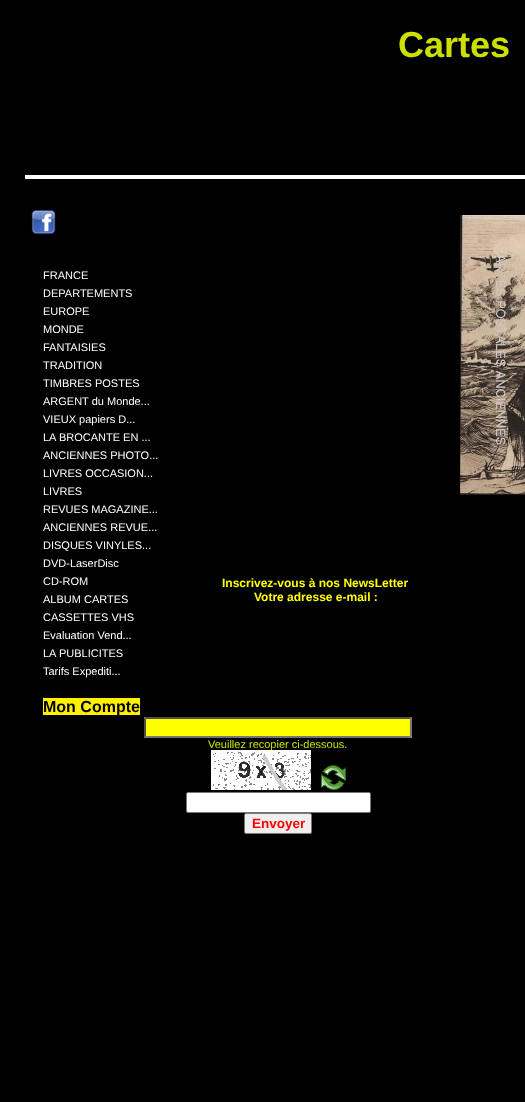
<!DOCTYPE html>
<meta charset="utf-8">
<style>body { margin: 0 } canvas { display: block }</style>
<canvas id="canvas" width="525" height="1102"></canvas>
<img id="img1" src="images/1.png" hidden>
<img id="img2" src="images/3.png" hidden>
<img id="img3" src="images/4.png" hidden>
<img id="img4" src="images/2.png" hidden>
<script>
window.onload = function () {
    const canvas = document.getElementById('canvas');
    const context = canvas.getContext('2d');
    context.miterLimit = 4;
    context.fontKerning = 'normal';

    context.fillStyle = 'rgb(0, 0, 0)';
    context.fillRect(0, 0, 525, 1102);
    context.fillStyle = 'rgb(255, 255, 255)';
    context.fillRect(25, 175, 500, 4);
    context.drawImage(document.getElementById('img1'), 31, 210, 25, 25);
    context.fillStyle = 'rgb(255, 240, 0)';
    context.fillRect(43, 698, 97, 17);
    context.fillStyle = 'rgb(255, 255, 0)';
    context.fillRect(144, 717, 268, 21);
    context.fillStyle = 'rgb(79, 79, 79)';
    context.beginPath();
    context.moveTo(144, 717);
    context.lineTo(412, 717);
    context.lineTo(410, 719);
    context.lineTo(146, 719);
    context.closePath();
    context.fill();
    context.fillStyle = 'rgb(118, 118, 118)';
    context.beginPath();
    context.moveTo(412, 717);
    context.lineTo(412, 738);
    context.lineTo(410, 736);
    context.lineTo(410, 719);
    context.closePath();
    context.fill();
    context.beginPath();
    context.moveTo(412, 738);
    context.lineTo(144, 738);
    context.lineTo(146, 736);
    context.lineTo(410, 736);
    context.closePath();
    context.fill();
    context.fillStyle = 'rgb(79, 79, 79)';
    context.beginPath();
    context.moveTo(144, 738);
    context.lineTo(144, 717);
    context.lineTo(146, 719);
    context.lineTo(146, 736);
    context.closePath();
    context.fill();
    context.drawImage(document.getElementById('img2'), 321, 765, 25, 25);
    context.fillStyle = 'rgb(255, 255, 255)';
    context.beginPath();
    context.roundRect(186.5, 792.5, 184, 20, 1.5);
    context.fill();
    context.strokeStyle = 'rgb(118, 118, 118)';
    context.stroke();
    context.fillStyle = 'rgb(239, 239, 239)';
    context.beginPath();
    context.roundRect(244.5, 813.5, 67, 20, 1.5);
    context.fill();
    context.stroke();
    context.drawImage(document.getElementById('img3'), 460, 215, 65, 280);
    context.font = 'bold 36px Liberation Sans';
    context.fillStyle = 'rgb(204, 224, 0)';
    context.fillText('Cartes', 398, 57);
    context.font = '11px Liberation Sans';
    context.fillStyle = 'rgb(255, 255, 255)';
    context.fillText('FRANCE', 43, 279);
    context.fillText('DEPARTEMENTS', 43, 297);
    context.fillText('EUROPE', 43, 315);
    context.fillText('MONDE', 43, 333);
    context.fillText('FANTAISIES', 43, 351);
    context.fillText('TRADITION', 43, 369);
    context.fillText('TIMBRES POSTES', 43, 387);
    context.fillText('ARGENT du Monde...', 43, 405);
    context.fillText('VIEUX papiers D...', 43, 423);
    context.fillText('LA BROCANTE EN ...', 43, 441);
    context.fillText('ANCIENNES PHOTO...', 43, 459);
    context.fillText('LIVRES OCCASION...', 43, 477);
    context.fillText('LIVRES', 43, 495);
    context.fillText('REVUES MAGAZINE...', 43, 513);
    context.fillText('ANCIENNES REVUE...', 43, 531);
    context.fillText('DISQUES VINYLES...', 43, 549);
    context.fillText('DVD-LaserDisc', 43, 567);
    context.fillText('CD-ROM', 43, 585);
    context.fillText('ALBUM CARTES', 43, 603);
    context.fillText('CASSETTES VHS', 43, 621);
    context.fillText('Evaluation Vend...', 43, 639);
    context.fillText('LA PUBLICITES', 43, 657);
    context.fillText('Tarifs Expediti...', 43, 675);
    context.font = 'bold 16px Liberation Sans';
    context.fillStyle = 'rgb(0, 0, 0)';
    context.fillText('Mon Compte', 43, 712);
    context.font = 'bold 12px Liberation Sans';
    context.fillStyle = 'rgb(255, 255, 0)';
    context.fillText('Inscrivez-vous à nos NewsLetter', 222, 587);
    context.fillText('Votre adresse e-mail :', 254, 601);
    context.font = '11px Liberation Sans';
    context.fillStyle = 'rgb(204, 224, 0)';
    context.fillText('Veuillez recopier ci-dessous.', 208, 748);
    context.drawImage(document.getElementById('img4'), 211, 750, 100, 40);
    context.font = 'bold 13.5px Liberation Sans';
    context.fillStyle = 'rgb(255, 0, 0)';
    context.fillText('Envoyer', 252, 828);
};
</script>
